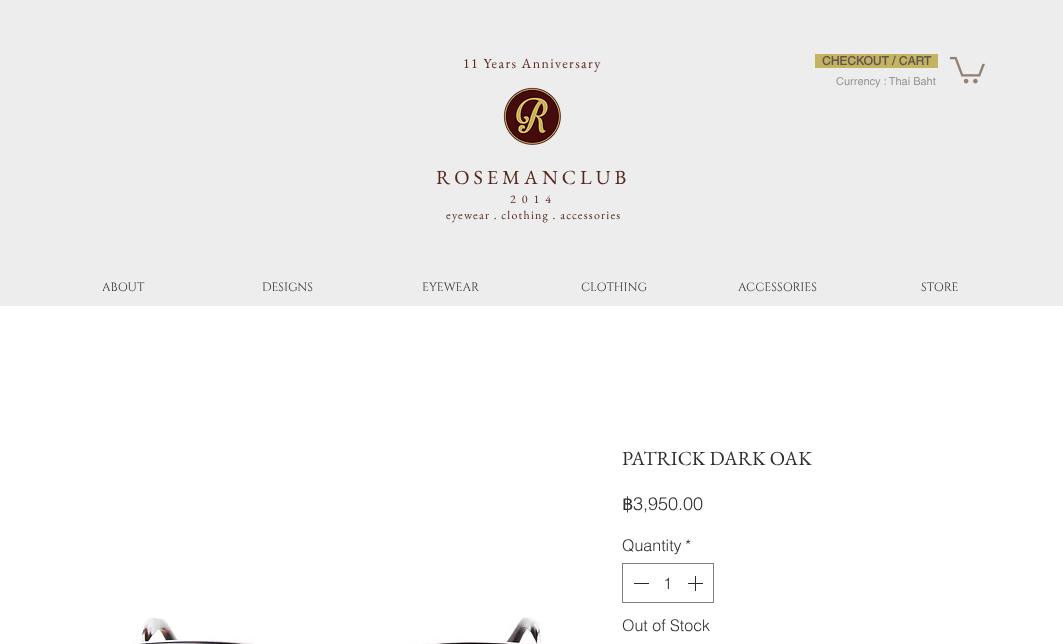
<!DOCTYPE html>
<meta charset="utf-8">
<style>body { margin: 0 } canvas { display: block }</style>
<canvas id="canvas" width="1063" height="644"></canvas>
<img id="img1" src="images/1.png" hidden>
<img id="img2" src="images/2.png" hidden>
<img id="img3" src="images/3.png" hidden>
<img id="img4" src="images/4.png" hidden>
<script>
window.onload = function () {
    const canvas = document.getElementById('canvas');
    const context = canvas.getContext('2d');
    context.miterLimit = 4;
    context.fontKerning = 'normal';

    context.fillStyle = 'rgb(255, 255, 255)';
    context.fillRect(0, 0, 1063, 644);
    context.fillStyle = 'rgb(237, 237, 237)';
    context.fillRect(0, 0, 1063, 306);
    context.drawImage(document.getElementById('img1'), 503, 87, 58, 58);
    context.fillStyle = 'rgb(196, 180, 98)';
    context.fillRect(815, 54, 123, 14);
    context.drawImage(document.getElementById('img2'), 950, 56, 35, 28);
    context.drawImage(document.getElementById('img3'), 133, 617, 411, 27);
    context.strokeStyle = 'rgb(128, 128, 128)';
    context.strokeRect(622.5, 563.5, 91, 39);
    context.fillStyle = 'rgb(43, 43, 43)';
    context.fillRect(634, 583, 15, 1);
    context.drawImage(document.getElementById('img4'), 688, 576, 15, 15);
    context.letterSpacing = '1.4px';
    context.font = '14px EB Garamond';
    context.fillStyle = 'rgb(84, 40, 29)';
    context.fillText('11 Years Anniversary', 463, 68);
    context.letterSpacing = '4px';
    context.font = '20px EB Garamond';
    context.fillText('ROSEMANCLUB', 436, 184);
    context.letterSpacing = '6px';
    context.font = '12px EB Garamond';
    context.fillText('2014', 510, 203);
    context.letterSpacing = '1.2px';
    context.fillText('eyewear . clothing . accessories', 446, 219);
    context.letterSpacing = '0px';
    context.font = 'bold 12px helvetica';
    context.fillStyle = 'rgb(97, 86, 78)';
    context.fillText('CHECKOUT / CART', 822, 65);
    context.font = '11px helvetica';
    context.fillStyle = 'rgb(151, 149, 149)';
    context.fillText('Currency : Thai Baht', 836, 85);
    context.font = '12px Cinzel';
    context.fillStyle = 'rgb(47, 46, 46)';
    context.fillText('ABOUT', 102, 291);
    context.fillText('DESIGNS', 262, 291);
    context.fillText('EYEWEAR', 422, 291);
    context.fillText('CLOTHING', 581, 291);
    context.fillText('ACCESSORIES', 738, 291);
    context.fillText('STORE', 921, 291);
    context.font = '20px EB Garamond';
    context.fillText('PATRICK DARK OAK', 622, 465);
    context.font = '18px DejaVu Sans';
    context.fillText('฿', 622, 510);
    context.font = '300 18px helvetica';
    context.fillText('3,950.00', 633, 510);
    context.font = '300 16px helvetica';
    context.fillText('Quantity', 622, 551);
    context.fillText('*', 685, 551);
    context.fillText('1', 663, 589);
    context.fillText('Out of Stock', 622, 631);
};
</script>
